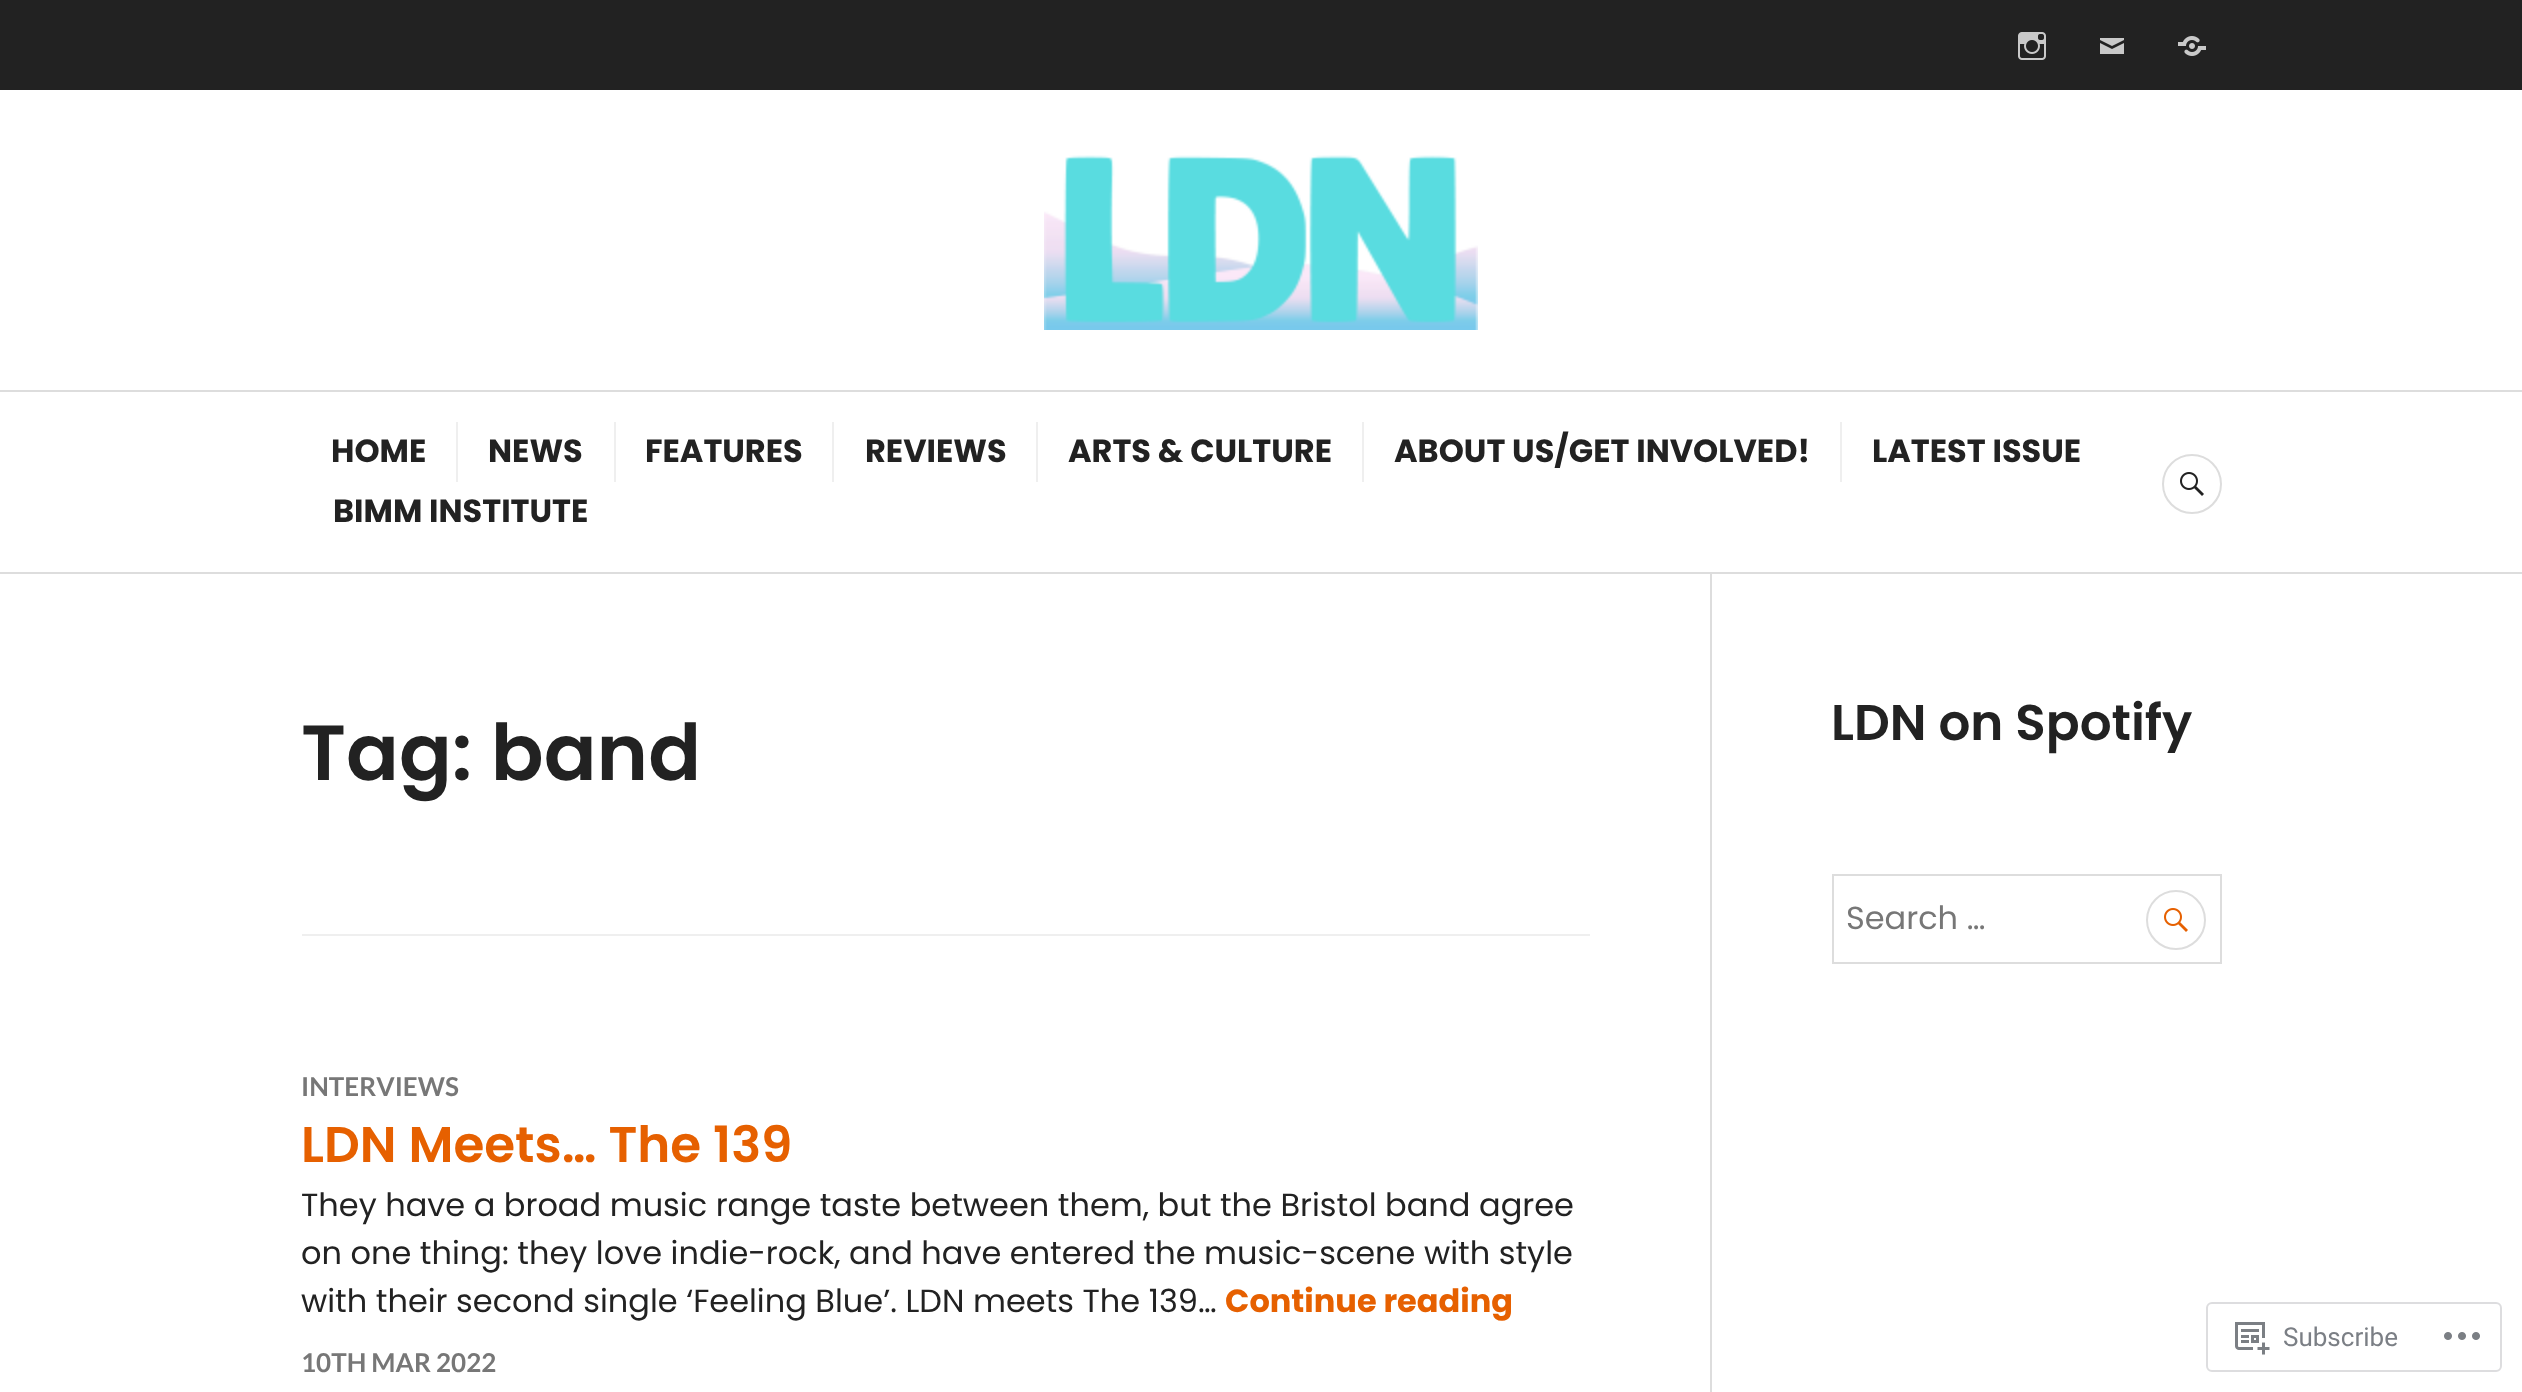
<!DOCTYPE html>
<meta charset="utf-8">
<style>body { margin: 0 } canvas { display: block }</style>
<canvas id="canvas" width="2522" height="1392"></canvas>
<img id="img1" src="images/1.png" hidden>
<img id="img2" src="images/2.png" hidden>
<img id="img3" src="images/3.png" hidden>
<img id="img4" src="images/4.png" hidden>
<img id="img5" src="images/5.png" hidden>
<img id="img6" src="images/6.png" hidden>
<img id="img7" src="images/7.png" hidden>
<img id="img8" src="images/8.png" hidden>
<script>
window.onload = function () {
    const canvas = document.getElementById('canvas');
    const context = canvas.getContext('2d');
    context.miterLimit = 4;
    context.fontKerning = 'normal';

    context.fillStyle = 'rgb(255, 255, 255)';
    context.fillRect(0, 0, 2522, 1392);
    context.fillStyle = 'rgb(221, 221, 221)';
    context.fillRect(0, 572, 2522, 2);
    context.fillStyle = 'rgb(34, 34, 34)';
    context.fillRect(0, 0, 2522, 90);
    context.drawImage(document.getElementById('img1'), 2018, 32, 28, 28);
    context.drawImage(document.getElementById('img2'), 2100, 38, 24, 16);
    context.drawImage(document.getElementById('img3'), 2178, 36, 28, 20);
    context.drawImage(document.getElementById('img4'), 1044, 155, 434, 175);
    context.fillStyle = 'rgb(221, 221, 221)';
    context.fillRect(0, 390, 2522, 2);
    context.fillStyle = 'rgb(239, 239, 239)';
    context.fillRect(456, 422, 2, 60);
    context.fillRect(614, 422, 2, 60);
    context.fillRect(832, 422, 2, 60);
    context.fillRect(1036, 422, 2, 60);
    context.fillRect(1362, 422, 2, 60);
    context.fillRect(1840, 422, 2, 60);
    context.beginPath();
    context.arc(2192, 484, 29, 0, 2 * Math.PI);
    context.strokeStyle = 'rgb(221, 221, 221)';
    context.lineWidth = 2;
    context.stroke();
    context.drawImage(document.getElementById('img5'), 2180, 472, 24, 24);
    context.fillStyle = 'rgb(221, 221, 221)';
    context.fillRect(1710, 574, 2, 818);
    context.fillStyle = 'rgb(239, 239, 239)';
    context.fillRect(302, 934, 1288, 2);
    context.strokeRect(1833, 875, 388, 88);
    context.drawImage(document.getElementById('img6'), 2164, 908, 24, 24);
    context.beginPath();
    context.arc(2176, 920, 29, 0, 2 * Math.PI);
    context.stroke();
    context.beginPath();
    context.roundRect(2207, 1303, 294, 68, 5);
    context.strokeStyle = 'rgb(221, 221, 223)';
    context.stroke();
    context.drawImage(document.getElementById('img7'), 2235, 1322, 35, 33);
    context.drawImage(document.getElementById('img8'), 2444, 1332, 36, 8);
    context.font = 'bold 32px Poppins';
    context.fillStyle = 'rgb(34, 34, 34)';
    context.fillText('HOME', 331, 462);
    context.fillText('NEWS', 488, 462);
    context.fillText('FEATURES', 645, 462);
    context.fillText('REVIEWS', 865, 462);
    context.fillText('ARTS & CULTURE', 1068, 462);
    context.fillText('ABOUT US/GET INVOLVED!', 1394, 462);
    context.fillText('LATEST ISSUE', 1872, 462);
    context.fillText('BIMM INSTITUTE', 333, 522);
    context.font = '600 78px Poppins';
    context.fillText('Tag: band', 301, 780);
    context.font = 'bold 26px Lato';
    context.fillStyle = 'rgb(119, 119, 119)';
    context.fillText('INTERVIEWS', 301, 1096);
    context.font = '600 50px Poppins';
    context.fillStyle = 'rgb(230, 96, 0)';
    context.fillText('LDN Meets… The 139', 301, 1162);
    context.font = '32px Poppins';
    context.fillStyle = 'rgb(34, 34, 34)';
    context.fillText('They have a broad music range taste between them, but the Bristol band agree', 301, 1216);
    context.fillText('on one thing: they love indie-rock, and have entered the music-scene with style', 301, 1264);
    context.fillText('with their second single ‘Feeling Blue’. LDN meets The 139…', 301, 1312);
    context.font = 'bold 32px Poppins';
    context.fillStyle = 'rgb(230, 96, 0)';
    context.fillText('Continue reading', 1225, 1312);
    context.font = 'bold 26px Lato';
    context.fillStyle = 'rgb(119, 119, 119)';
    context.fillText('10TH MAR 2022', 301, 1372);
    context.font = '600 50px Poppins';
    context.fillStyle = 'rgb(34, 34, 34)';
    context.fillText('LDN on Spotify', 1831, 740);
    context.font = '32px Poppins';
    context.fillStyle = 'rgb(119, 119, 119)';
    context.fillText('Search …', 1846, 929);
    context.font = '26px Roboto';
    context.fillStyle = 'rgb(123, 127, 133)';
    context.fillText('Subscribe', 2283, 1346);
};
</script>
